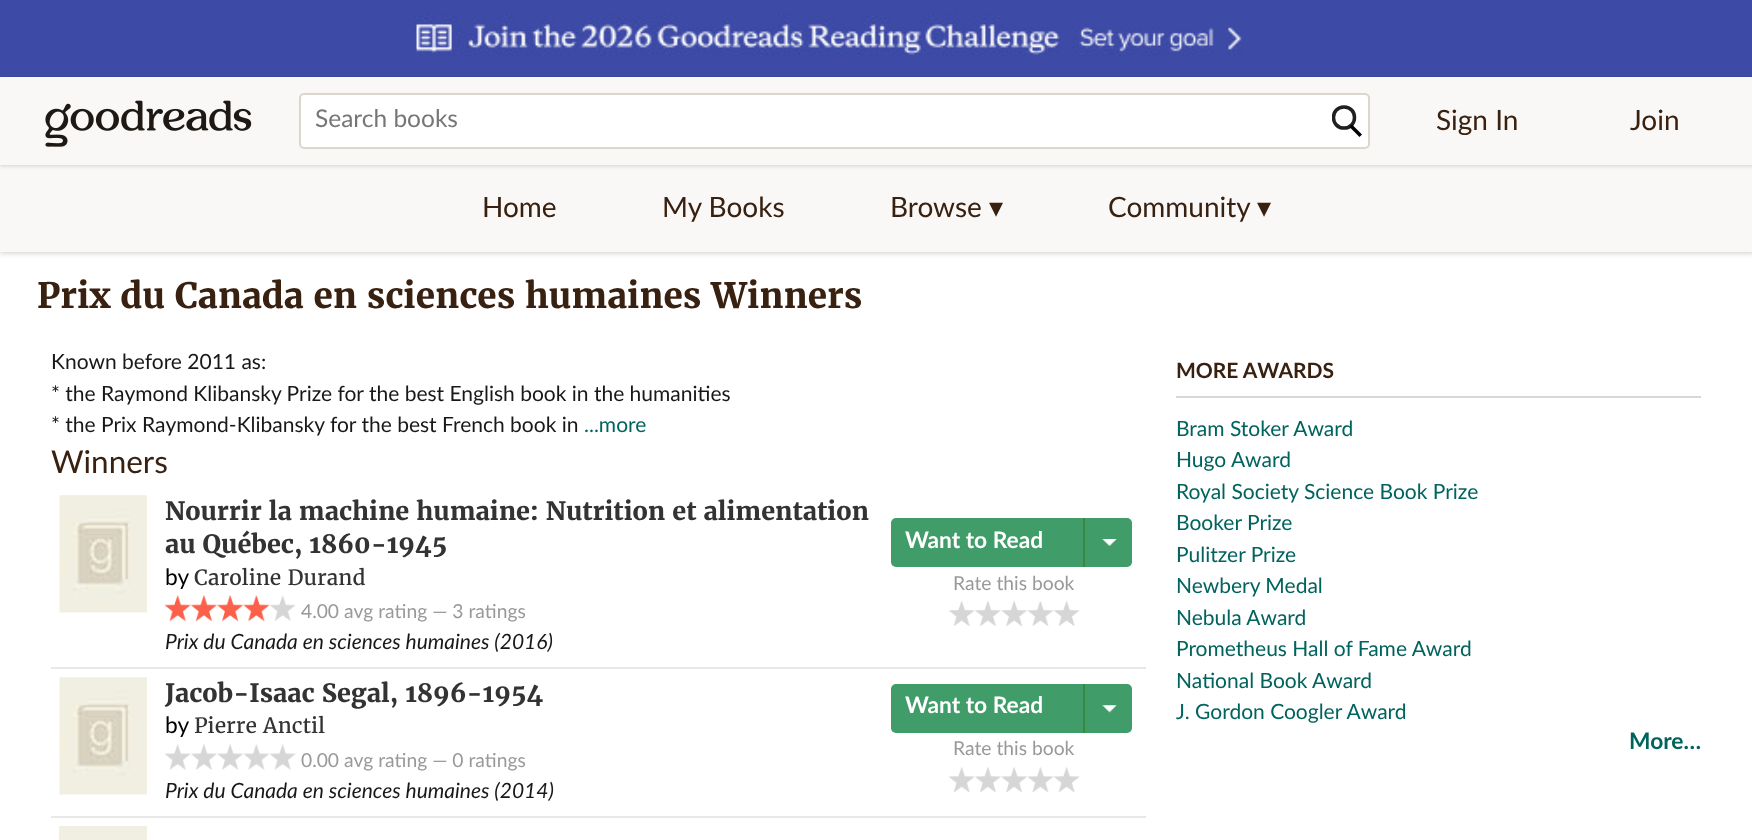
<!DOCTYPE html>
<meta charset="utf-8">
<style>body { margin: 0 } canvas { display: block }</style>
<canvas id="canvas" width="1752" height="840"></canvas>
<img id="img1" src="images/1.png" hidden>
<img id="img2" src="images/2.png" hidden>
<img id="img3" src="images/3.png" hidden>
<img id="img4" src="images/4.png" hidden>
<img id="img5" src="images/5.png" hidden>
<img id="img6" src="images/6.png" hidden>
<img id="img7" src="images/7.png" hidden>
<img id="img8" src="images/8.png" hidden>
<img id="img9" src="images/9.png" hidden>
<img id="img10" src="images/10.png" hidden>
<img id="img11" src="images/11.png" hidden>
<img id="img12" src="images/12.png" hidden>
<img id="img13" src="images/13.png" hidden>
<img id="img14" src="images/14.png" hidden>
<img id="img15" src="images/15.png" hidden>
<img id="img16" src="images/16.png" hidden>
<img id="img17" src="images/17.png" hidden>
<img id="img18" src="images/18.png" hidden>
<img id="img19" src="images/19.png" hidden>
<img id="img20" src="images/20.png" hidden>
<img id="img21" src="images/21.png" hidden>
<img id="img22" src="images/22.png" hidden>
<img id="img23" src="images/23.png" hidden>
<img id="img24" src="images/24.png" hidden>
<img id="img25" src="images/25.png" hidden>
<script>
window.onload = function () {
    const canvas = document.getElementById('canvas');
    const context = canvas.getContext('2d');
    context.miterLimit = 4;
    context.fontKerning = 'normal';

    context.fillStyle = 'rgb(255, 255, 255)';
    context.fillRect(0, 0, 1752, 840);
    context.fillStyle = 'rgb(61, 74, 166)';
    context.fillRect(0, 0, 1752, 77);
    context.drawImage(document.getElementById('img1'), 414, 14, 828, 42);
    context.fillStyle = 'rgba(0, 0, 0, 0.15)';
    context.filter = 'blur(2px)';
    context.beginPath();
    context.rect(0, 166, 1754, 88);
    context.fill();
    context.filter = 'none';
    context.fillStyle = 'rgb(250, 248, 246)';
    context.fillRect(0, 165, 1752, 87);
    context.fillStyle = 'rgba(0, 0, 0, 0.15)';
    context.filter = 'blur(2px)';
    context.beginPath();
    context.rect(0, 79, 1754, 87);
    context.fill();
    context.filter = 'none';
    context.fillStyle = 'rgb(250, 248, 246)';
    context.fillRect(0, 77, 1752, 88);
    context.drawImage(document.getElementById('img2'), 45, 100, 207, 47);
    context.fillStyle = 'rgb(255, 255, 255)';
    context.beginPath();
    context.roundRect(300, 94, 1069, 54, 4);
    context.fill();
    context.strokeStyle = 'rgb(220, 214, 204)';
    context.lineWidth = 2;
    context.stroke();
    context.save();
    context.beginPath();
    context.rect(1332, 105, 31, 33);
    context.clip();
    context.beginPath();
    context.moveTo(1344, 128);
    context.bezierCurveTo(1358, 128, 1358, 107, 1344, 107);
    context.bezierCurveTo(1330, 107, 1330, 128, 1344, 128);
    context.closePath();
    context.strokeStyle = 'rgb(32, 32, 32)';
    context.lineWidth = 3.5;
    context.stroke();
    context.restore();
    context.beginPath();
    context.moveTo(1352, 127);
    context.lineTo(1359.5, 134.5);
    context.strokeStyle = 'rgb(0, 0, 0)';
    context.lineWidth = 3.5;
    context.lineCap = 'square';
    context.stroke();
    context.drawImage(document.getElementById('img3'), 59, 495, 88, 118);
    context.drawImage(document.getElementById('img4'), 164, 595, 27, 27);
    context.drawImage(document.getElementById('img5'), 190, 595, 27, 27);
    context.drawImage(document.getElementById('img6'), 217, 595, 27, 27);
    context.drawImage(document.getElementById('img7'), 243, 595, 27, 27);
    context.drawImage(document.getElementById('img8'), 270, 595, 26, 26);
    context.fillStyle = 'rgb(232, 232, 232)';
    context.fillRect(51, 667, 1095, 2);
    context.fillStyle = 'rgb(64, 157, 105)';
    context.beginPath();
    context.roundRect(891, 518, 192, 49, [5, 0, 0, 5]);
    context.fill();
    context.beginPath();
    context.roundRect(1083, 518, 49, 49, [0, 5, 5, 0]);
    context.fill();
    context.fillStyle = 'rgb(56, 136, 61)';
    context.fillRect(1083, 518, 2, 49);
    context.drawImage(document.getElementById('img9'), 1102, 539, 15, 7);
    context.drawImage(document.getElementById('img10'), 949, 601, 26, 25);
    context.drawImage(document.getElementById('img11'), 975, 601, 26, 25);
    context.drawImage(document.getElementById('img12'), 1001, 601, 26, 26);
    context.drawImage(document.getElementById('img13'), 1027, 601, 27, 25);
    context.drawImage(document.getElementById('img14'), 1053, 601, 27, 25);
    context.drawImage(document.getElementById('img3'), 59, 677, 88, 118);
    context.drawImage(document.getElementById('img15'), 164, 744, 27, 26);
    context.drawImage(document.getElementById('img16'), 191, 744, 26, 26);
    context.drawImage(document.getElementById('img17'), 217, 744, 26, 26);
    context.drawImage(document.getElementById('img18'), 243, 744, 27, 26);
    context.drawImage(document.getElementById('img19'), 269, 744, 27, 26);
    context.fillStyle = 'rgb(232, 232, 232)';
    context.fillRect(51, 816, 1095, 2);
    context.fillStyle = 'rgb(64, 157, 105)';
    context.beginPath();
    context.roundRect(891, 684, 192, 49, [5, 0, 0, 5]);
    context.fill();
    context.beginPath();
    context.roundRect(1083, 684, 49, 49, [0, 5, 5, 0]);
    context.fill();
    context.fillStyle = 'rgb(56, 136, 61)';
    context.fillRect(1083, 684, 2, 49);
    context.drawImage(document.getElementById('img20'), 1102, 705, 15, 8);
    context.drawImage(document.getElementById('img21'), 949, 767, 26, 26);
    context.drawImage(document.getElementById('img22'), 975, 767, 26, 26);
    context.drawImage(document.getElementById('img23'), 1001, 767, 26, 26);
    context.drawImage(document.getElementById('img24'), 1027, 767, 27, 26);
    context.drawImage(document.getElementById('img25'), 1053, 767, 27, 26);
    context.fillStyle = 'rgb(241, 239, 226)';
    context.fillRect(59, 826, 88, 14);
    context.fillStyle = 'rgb(216, 216, 216)';
    context.fillRect(1176, 396, 525, 2);
    context.font = '24.5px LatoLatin';
    context.fillStyle = 'rgb(118, 118, 118)';
    context.fillText('Search books', 315, 127);
    context.font = '28px LatoLatin';
    context.fillStyle = 'rgb(56, 33, 16)';
    context.fillText('Sign In', 1436, 130);
    context.fillText('Join', 1630, 130);
    context.fillText('Home', 482, 217);
    context.fillText('My Books', 662, 217);
    context.fillText('Browse', 890, 217);
    context.font = '28px DejaVu Sans';
    context.fillText('▾', 989, 217);
    context.font = '28px LatoLatin';
    context.fillText('Community', 1108, 217);
    context.font = '28px DejaVu Sans';
    context.fillText('▾', 1257, 217);
    context.font = 'bold 35px Merriweather';
    context.fillText('Prix du Canada en sciences humaines Winners', 37, 308);
    context.font = '21px LatoLatin';
    context.fillStyle = 'rgb(24, 24, 24)';
    context.fillText('Known before 2011 as:', 51, 369);
    context.fillText('* the Raymond Klibansky Prize for the best English book in the humanities', 51, 401);
    context.fillText('* the Prix Raymond-Klibansky for the best French book in', 51, 432);
    context.fillStyle = 'rgb(0, 99, 93)';
    context.fillText('...more', 584, 432);
    context.font = '31.5px LatoLatin';
    context.fillStyle = 'rgb(56, 33, 16)';
    context.fillText('Winners', 51, 473);
    context.font = 'bold 25.2px Merriweather';
    context.fillStyle = 'rgb(51, 51, 51)';
    context.fillText('Nourrir la machine humaine: Nutrition et alimentation', 165, 520);
    context.fillText('au Québec, 1860-1945', 165, 553);
    context.font = '22.75px LatoLatin';
    context.fillStyle = 'rgb(0, 0, 0)';
    context.fillText('by', 165, 585);
    context.font = '21px Merriweather';
    context.fillStyle = 'rgb(51, 51, 51)';
    context.fillText('Caroline Durand', 194, 585);
    context.font = '19.25px LatoLatin';
    context.fillStyle = 'rgb(153, 153, 153)';
    context.fillText('4.00 avg rating — 3 ratings', 301, 618);
    context.font = 'italic 21px LatoLatin';
    context.fillStyle = 'rgb(24, 24, 24)';
    context.fillText('Prix du Canada en sciences humaines (2016)', 165, 649);
    context.font = 'bold 22.75px LatoLatin';
    context.fillStyle = 'rgb(255, 255, 255)';
    context.fillText('Want to Read', 905, 548);
    context.font = '19.25px LatoLatin';
    context.fillStyle = 'rgb(153, 153, 153)';
    context.fillText('Rate this book', 953, 590);
    context.font = 'bold 25.2px Merriweather';
    context.fillStyle = 'rgb(51, 51, 51)';
    context.fillText('Jacob-Isaac Segal, 1896-1954', 165, 702);
    context.font = '22.75px LatoLatin';
    context.fillStyle = 'rgb(0, 0, 0)';
    context.fillText('by', 165, 733);
    context.font = '21px Merriweather';
    context.fillStyle = 'rgb(51, 51, 51)';
    context.fillText('Pierre Anctil', 194, 733);
    context.font = '19.25px LatoLatin';
    context.fillStyle = 'rgb(153, 153, 153)';
    context.fillText('0.00 avg rating — 0 ratings', 301, 767);
    context.font = 'italic 21px LatoLatin';
    context.fillStyle = 'rgb(24, 24, 24)';
    context.fillText('Prix du Canada en sciences humaines (2014)', 165, 798);
    context.font = 'bold 22.75px LatoLatin';
    context.fillStyle = 'rgb(255, 255, 255)';
    context.fillText('Want to Read', 905, 713);
    context.font = '19.25px LatoLatin';
    context.fillStyle = 'rgb(153, 153, 153)';
    context.fillText('Rate this book', 953, 755);
    context.font = 'bold 21px LatoLatin';
    context.fillStyle = 'rgb(56, 33, 16)';
    context.fillText('MORE AWARDS', 1176, 378);
    context.font = '21px LatoLatin';
    context.fillStyle = 'rgb(0, 99, 93)';
    context.fillText('Bram Stoker Award', 1176, 436);
    context.fillText('Hugo Award', 1176, 467);
    context.fillText('Royal Society Science Book Prize', 1176, 499);
    context.fillText('Booker Prize', 1176, 530);
    context.fillText('Pulitzer Prize', 1176, 562);
    context.fillText('Newbery Medal', 1176, 593);
    context.fillText('Nebula Award', 1176, 625);
    context.fillText('Prometheus Hall of Fame Award', 1176, 656);
    context.fillText('National Book Award', 1176, 688);
    context.fillText('J. Gordon Coogler Award', 1176, 719);
    context.font = 'bold 22.75px LatoLatin';
    context.fillText('More…', 1629, 749);
};
</script>
